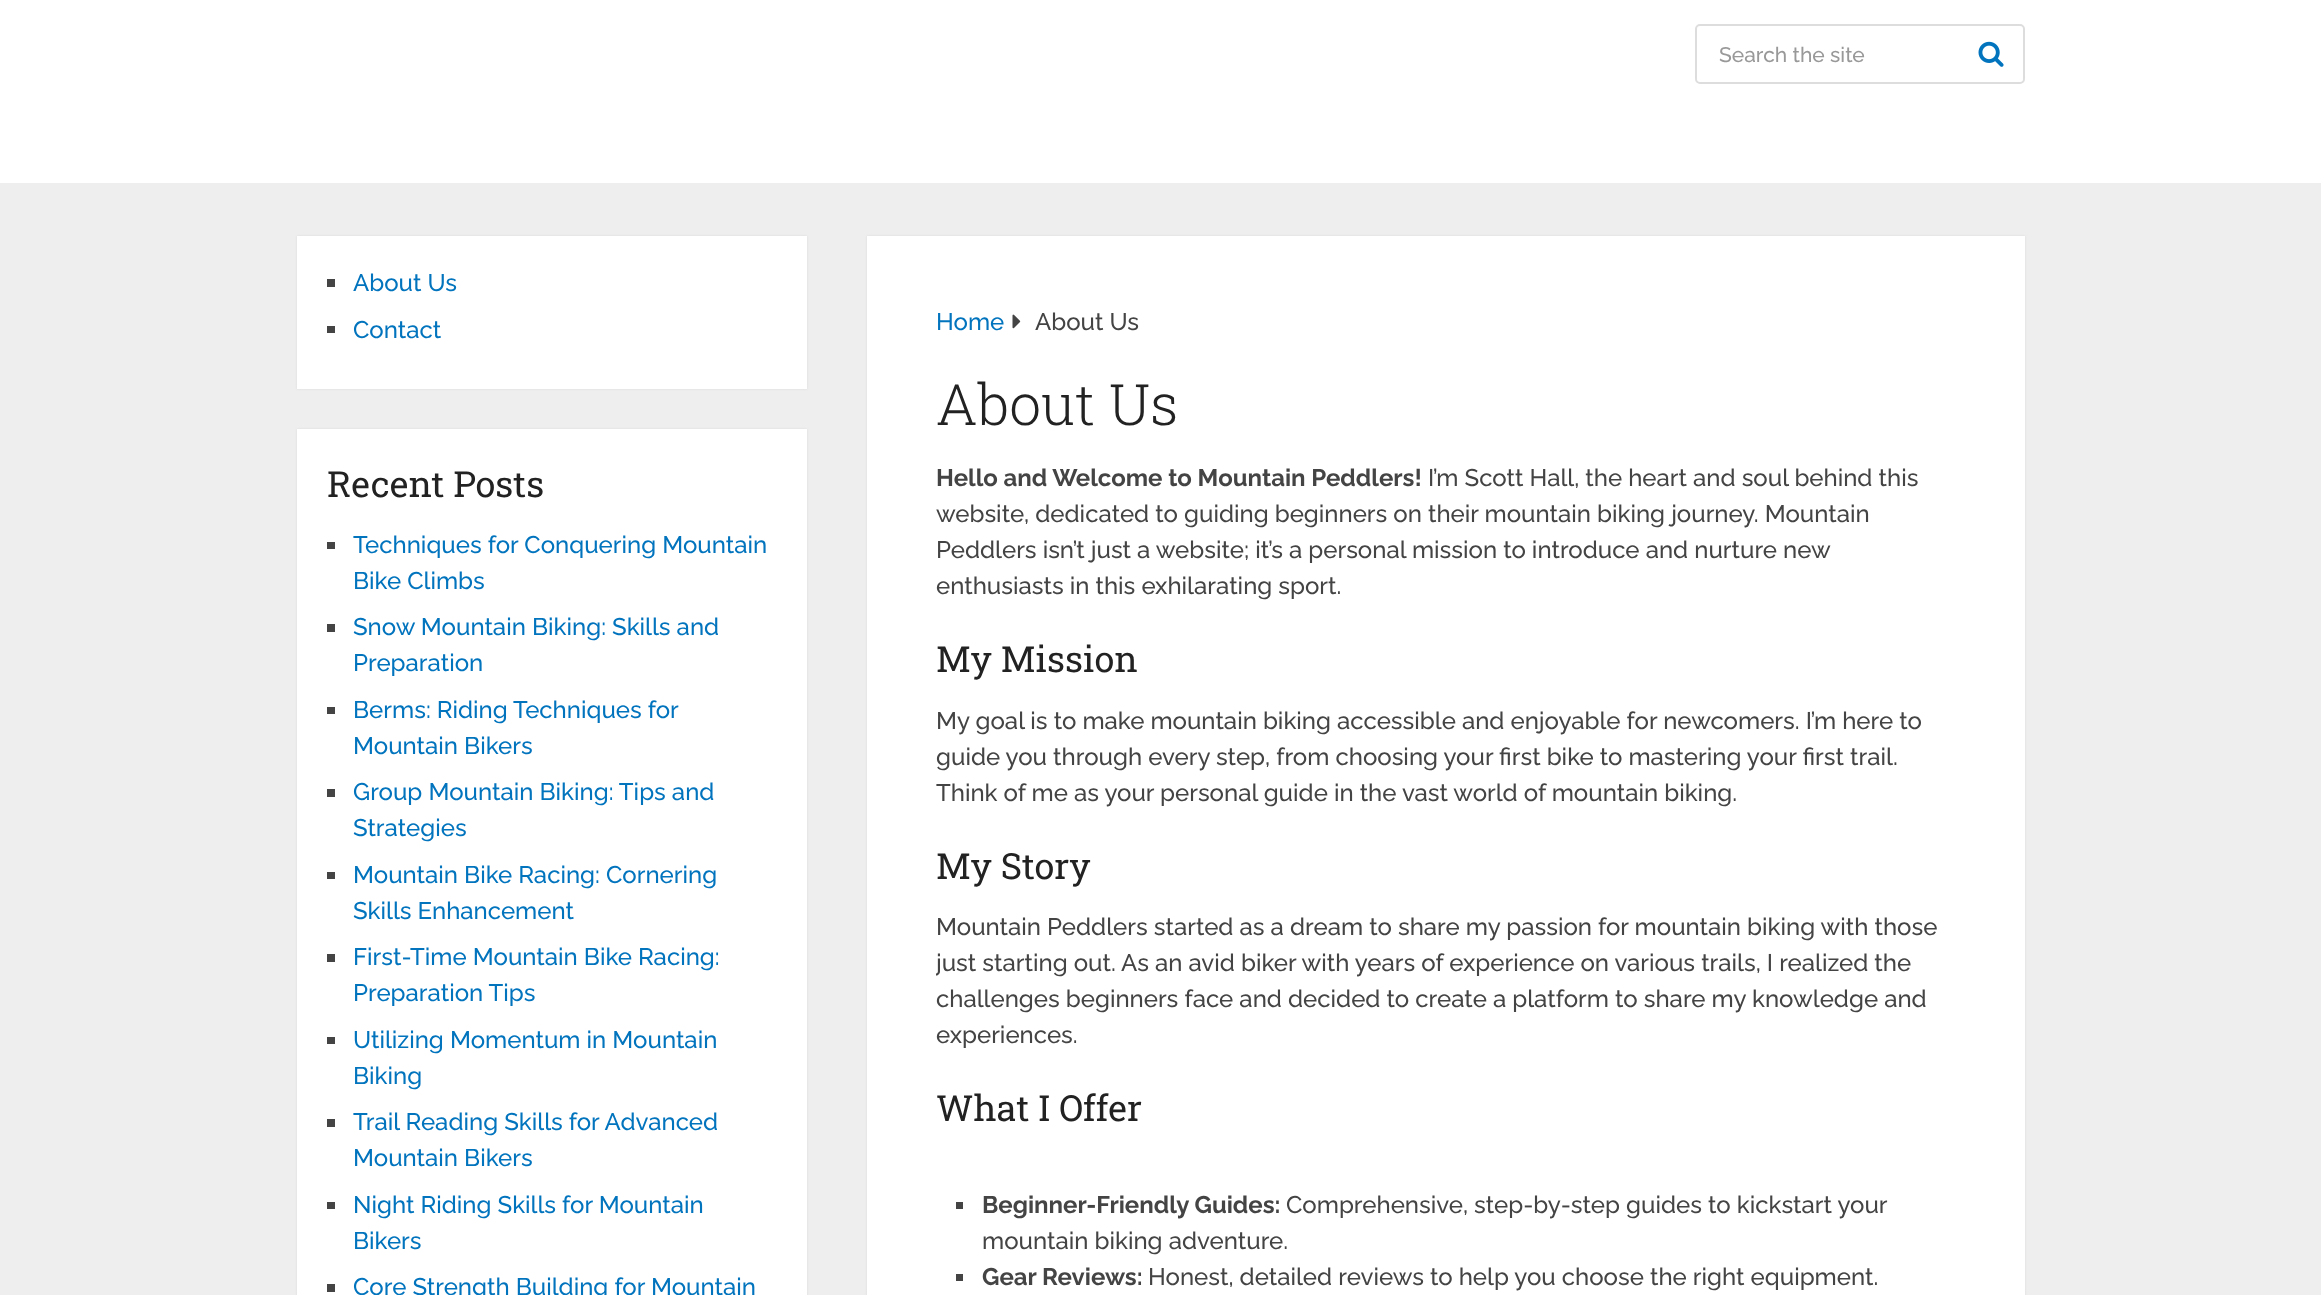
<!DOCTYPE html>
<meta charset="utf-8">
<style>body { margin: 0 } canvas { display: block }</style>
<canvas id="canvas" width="2321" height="1295"></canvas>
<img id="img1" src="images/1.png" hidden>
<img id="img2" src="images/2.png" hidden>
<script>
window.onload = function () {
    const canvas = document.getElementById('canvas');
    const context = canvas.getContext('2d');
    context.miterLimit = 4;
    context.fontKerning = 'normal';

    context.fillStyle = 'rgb(238, 238, 238)';
    context.fillRect(0, 0, 2321, 1295);
    context.fillStyle = 'rgb(255, 255, 255)';
    context.fillRect(0, 0, 2321, 183);
    context.beginPath();
    context.roundRect(1696, 25, 328, 58, 4);
    context.strokeStyle = 'rgb(221, 221, 221)';
    context.lineWidth = 2;
    context.stroke();
    context.drawImage(document.getElementById('img1'), 1978, 41, 26, 26);
    context.fillStyle = 'rgba(50, 50, 50, 0.1)';
    context.filter = 'blur(1px)';
    context.beginPath();
    context.rect(297, 236, 510, 153);
    context.fill();
    context.filter = 'none';
    context.fillStyle = 'rgb(255, 255, 255)';
    context.fillRect(297, 236, 510, 153);
    context.fillStyle = 'rgb(68, 68, 68)';
    context.fillRect(327, 279, 8, 8);
    context.fillRect(327, 326, 8, 7);
    context.fillStyle = 'rgba(50, 50, 50, 0.1)';
    context.filter = 'blur(1px)';
    context.beginPath();
    context.rect(297, 429, 510, 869);
    context.fill();
    context.filter = 'none';
    context.fillStyle = 'rgb(255, 255, 255)';
    context.fillRect(297, 429, 510, 866);
    context.fillStyle = 'rgb(68, 68, 68)';
    context.fillRect(327, 542, 8, 7);
    context.fillRect(327, 624, 8, 8);
    context.fillRect(327, 707, 8, 7);
    context.fillRect(327, 789, 8, 8);
    context.fillRect(327, 872, 8, 7);
    context.fillRect(327, 954, 8, 8);
    context.fillRect(327, 1037, 8, 7);
    context.fillRect(327, 1119, 8, 8);
    context.fillRect(327, 1202, 8, 7);
    context.fillRect(327, 1284, 8, 8);
    context.fillStyle = 'rgba(50, 50, 50, 0.1)';
    context.filter = 'blur(1px)';
    context.beginPath();
    context.rect(867, 236, 1158, 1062);
    context.fill();
    context.filter = 'none';
    context.fillStyle = 'rgb(255, 255, 255)';
    context.fillRect(867, 236, 1158, 1059);
    context.drawImage(document.getElementById('img2'), 1012, 314, 9, 15);
    context.fillStyle = 'rgb(68, 68, 68)';
    context.fillRect(956, 1202, 7, 7);
    context.fillRect(956, 1274, 7, 7);
    context.font = '500 21px Raleway';
    context.fillStyle = 'rgb(153, 153, 153)';
    context.fillText('Search the site', 1719, 62);
    context.font = '500 24px Raleway';
    context.fillStyle = 'rgb(2, 116, 190)';
    context.fillText('About Us', 353, 291);
    context.fillText('Contact', 353, 338);
    context.font = '36px Roboto Slab';
    context.fillStyle = 'rgb(34, 34, 34)';
    context.fillText('Recent Posts', 327, 497);
    context.font = '500 24px Raleway';
    context.fillStyle = 'rgb(2, 116, 190)';
    context.fillText('Techniques for Conquering Mountain', 353, 553);
    context.fillText('Bike Climbs', 353, 589);
    context.fillText('Snow Mountain Biking: Skills and', 353, 635);
    context.fillText('Preparation', 353, 671);
    context.fillText('Berms: Riding Techniques for', 353, 718);
    context.fillText('Mountain Bikers', 353, 754);
    context.fillText('Group Mountain Biking: Tips and', 353, 800);
    context.fillText('Strategies', 353, 836);
    context.fillText('Mountain Bike Racing: Cornering', 353, 883);
    context.fillText('Skills Enhancement', 353, 919);
    context.fillText('First-Time Mountain Bike Racing:', 353, 965);
    context.fillText('Preparation Tips', 353, 1001);
    context.fillText('Utilizing Momentum in Mountain', 353, 1048);
    context.fillText('Biking', 353, 1084);
    context.fillText('Trail Reading Skills for Advanced', 353, 1130);
    context.fillText('Mountain Bikers', 353, 1166);
    context.fillText('Night Riding Skills for Mountain', 353, 1213);
    context.fillText('Bikers', 353, 1249);
    context.fillText('Core Strength Building for Mountain', 353, 1295);
    context.fillText('Home', 936, 330);
    context.fillStyle = 'rgb(68, 68, 68)';
    context.fillText('About Us', 1035, 330);
    context.font = '300 57px Roboto Slab';
    context.fillStyle = 'rgb(34, 34, 34)';
    context.fillText('About Us', 936, 425);
    context.font = 'bold 24px Raleway';
    context.fillStyle = 'rgb(68, 68, 68)';
    context.fillText('Hello and Welcome to Mountain Peddlers!', 936, 486);
    context.font = '500 24px Raleway';
    context.fillText('I’m Scott Hall, the heart and soul behind this', 1428, 486);
    context.fillText('website, dedicated to guiding beginners on their mountain biking journey. Mountain', 936, 522);
    context.fillText('Peddlers isn’t just a website; it’s a personal mission to introduce and nurture new', 936, 558);
    context.fillText('enthusiasts in this exhilarating sport.', 936, 594);
    context.font = '36px Roboto Slab';
    context.fillStyle = 'rgb(34, 34, 34)';
    context.fillText('My Mission', 936, 672);
    context.font = '500 24px Raleway';
    context.fillStyle = 'rgb(68, 68, 68)';
    context.fillText('My goal is to make mountain biking accessible and enjoyable for newcomers. I’m here to', 936, 729);
    context.fillText('guide you through every step, from choosing your first bike to mastering your first trail.', 936, 765);
    context.fillText('Think of me as your personal guide in the vast world of mountain biking.', 936, 801);
    context.font = '36px Roboto Slab';
    context.fillStyle = 'rgb(34, 34, 34)';
    context.fillText('My Story', 936, 879);
    context.font = '500 24px Raleway';
    context.fillStyle = 'rgb(68, 68, 68)';
    context.fillText('Mountain Peddlers started as a dream to share my passion for mountain biking with those', 936, 935);
    context.save();
    context.beginPath();
    context.rect(936, 461, 1020, 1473);
    context.clip();
    context.fillText('just starting out. As an avid biker with years of experience on various trails, I realized the', 936, 971);
    context.restore();
    context.fillText('challenges beginners face and decided to create a platform to share my knowledge and', 936, 1007);
    context.fillText('experiences.', 936, 1043);
    context.font = '36px Roboto Slab';
    context.fillStyle = 'rgb(34, 34, 34)';
    context.fillText('What I Offer', 936, 1121);
    context.font = 'bold 24px Raleway';
    context.fillStyle = 'rgb(68, 68, 68)';
    context.fillText('Beginner-Friendly Guides:', 982, 1213);
    context.font = '500 24px Raleway';
    context.fillText('Comprehensive, step-by-step guides to kickstart your', 1286, 1213);
    context.fillText('mountain biking adventure.', 982, 1249);
    context.font = 'bold 24px Raleway';
    context.fillText('Gear Reviews:', 982, 1285);
    context.font = '500 24px Raleway';
    context.fillText('Honest, detailed reviews to help you choose the right equipment.', 1148, 1285);
};
</script>
